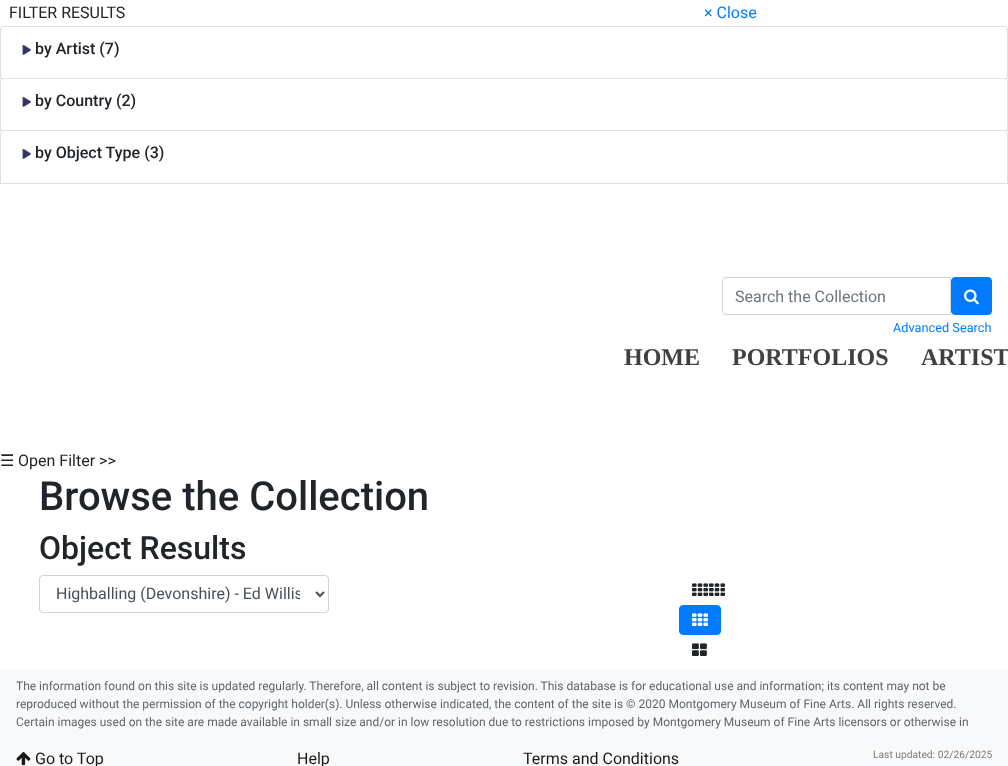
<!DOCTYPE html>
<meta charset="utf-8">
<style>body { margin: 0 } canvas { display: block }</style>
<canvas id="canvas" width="1008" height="766"></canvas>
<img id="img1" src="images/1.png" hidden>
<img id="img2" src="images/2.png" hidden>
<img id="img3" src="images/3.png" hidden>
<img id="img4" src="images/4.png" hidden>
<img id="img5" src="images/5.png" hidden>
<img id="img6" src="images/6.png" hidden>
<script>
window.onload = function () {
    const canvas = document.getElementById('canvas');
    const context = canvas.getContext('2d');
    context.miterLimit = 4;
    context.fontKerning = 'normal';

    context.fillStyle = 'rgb(255, 255, 255)';
    context.fillRect(0, 0, 1008, 766);
    context.beginPath();
    context.roundRect(0.5, 26.5, 1007, 52, [3.5, 3.5, 0, 0]);
    context.strokeStyle = 'rgb(223, 223, 223)';
    context.stroke();
    context.drawImage(document.getElementById('img1'), 21, 45, 10, 10);
    context.beginPath();
    context.roundRect(0, 78, 1008, 53, [4, 4, 0, 0]);
    context.fill();
    context.beginPath();
    context.roundRect(0.5, 78.5, 1007, 52, [3.5, 3.5, 0, 0]);
    context.strokeStyle = 'rgba(0, 0, 0, 0.12)';
    context.stroke();
    context.drawImage(document.getElementById('img1'), 21, 97, 10, 10);
    context.beginPath();
    context.roundRect(0, 130, 1008, 54, [4, 4, 0, 0]);
    context.fill();
    context.beginPath();
    context.roundRect(0.5, 130.5, 1007, 53, [3.5, 3.5, 0, 0]);
    context.stroke();
    context.drawImage(document.getElementById('img1'), 21, 149, 10, 10);
    context.beginPath();
    context.roundRect(722.5, 277.5, 228, 37, [3.5, 0, 0, 3.5]);
    context.strokeStyle = 'rgb(206, 212, 218)';
    context.stroke();
    context.fillStyle = 'rgb(0, 123, 255)';
    context.beginPath();
    context.roundRect(951.5, 277.5, 40, 37, 3.5);
    context.fill();
    context.strokeStyle = 'rgb(0, 123, 255)';
    context.stroke();
    context.drawImage(document.getElementById('img2'), 964, 289, 15, 16);
    context.beginPath();
    context.roundRect(39.5, 575.5, 289, 37, 3.5);
    context.strokeStyle = 'rgb(206, 212, 218)';
    context.stroke();
    context.beginPath();
    context.moveTo(316, 592);
    context.lineTo(320, 596);
    context.lineTo(324, 592);
    context.strokeStyle = 'rgb(73, 80, 87)';
    context.lineWidth = 2;
    context.stroke();
    context.drawImage(document.getElementById('img3'), 692, 583, 16, 13);
    context.drawImage(document.getElementById('img3'), 709, 583, 16, 13);
    context.beginPath();
    context.roundRect(679.5, 605.5, 41, 29, 3.5);
    context.fill();
    context.strokeStyle = 'rgb(0, 123, 255)';
    context.lineWidth = 1;
    context.stroke();
    context.drawImage(document.getElementById('img4'), 692, 613, 16, 13);
    context.drawImage(document.getElementById('img5'), 692, 643, 15, 13);
    context.fillStyle = 'rgb(248, 249, 250)';
    context.fillRect(0, 669, 1008, 97);
    context.drawImage(document.getElementById('img6'), 16, 752, 15, 14);
    context.font = '16px Roboto';
    context.fillStyle = 'rgb(33, 37, 41)';
    context.fillText('FILTER RESULTS', 9, 18);
    context.fillStyle = 'rgb(0, 123, 255)';
    context.fillText('× Close', 704, 18);
    context.font = '500 16px Roboto';
    context.fillStyle = 'rgb(33, 37, 41)';
    context.fillText('by Artist (7)', 35, 54);
    context.fillText('by Country (2)', 35, 106);
    context.fillText('by Object Type (3)', 35, 158);
    context.font = '16px Roboto';
    context.fillStyle = 'rgb(108, 117, 125)';
    context.fillText('Search the Collection', 735, 302);
    context.font = '12.75px Roboto';
    context.fillStyle = 'rgb(0, 123, 255)';
    context.fillText('Advanced Search', 893, 332);
    context.font = 'bold 24px Liberation Serif';
    context.fillStyle = 'rgb(64, 64, 64)';
    context.fillText('HOME', 624, 365);
    context.fillText('PORTFOLIOS', 732, 365);
    context.fillText('ARTIST', 921, 365);
    context.font = '16px DejaVu Sans';
    context.fillStyle = 'rgb(33, 37, 41)';
    context.fillText('☰', 0, 466);
    context.font = '16px Roboto';
    context.fillText('Open Filter >>', 18, 466);
    context.font = '500 40px Roboto';
    context.fillText('Browse the Collection', 39, 510);
    context.font = '500 32px Roboto';
    context.fillText('Object Results', 39, 559);
    context.save();
    context.beginPath();
    context.rect(56, 583, 244, 21);
    context.clip();
    context.font = '16px Roboto';
    context.fillStyle = 'rgb(73, 80, 87)';
    context.fillText('Highballing (Devonshire) - Ed Willis', 56, 599);
    context.restore();
    context.font = '12px Roboto';
    context.fillStyle = 'rgb(98, 101, 104)';
    context.fillText('The information found on this site is updated regularly. Therefore, all content is subject to revision. This database is for educational use and information; its content may not be', 16, 690);
    context.fillText('reproduced without the permission of the copyright holder(s). Unless otherwise indicated, the content of the site is © 2020 Montgomery Museum of Fine Arts. All rights reserved.', 16, 708);
    context.fillText('Certain images used on the site are made available in small size and/or in low resolution due to restrictions imposed by Montgomery Museum of Fine Arts licensors or otherwise in', 16, 726);
    context.font = '16px Roboto';
    context.fillStyle = 'rgb(25, 25, 25)';
    context.fillText('Go to Top', 35, 764);
    context.fillText('Help', 297, 764);
    context.fillText('Terms and Conditions', 523, 764);
    context.font = '10.25px Roboto';
    context.fillStyle = 'rgb(124, 125, 125)';
    context.fillText('Last updated: 02/26/2025', 873, 758);
};
</script>
